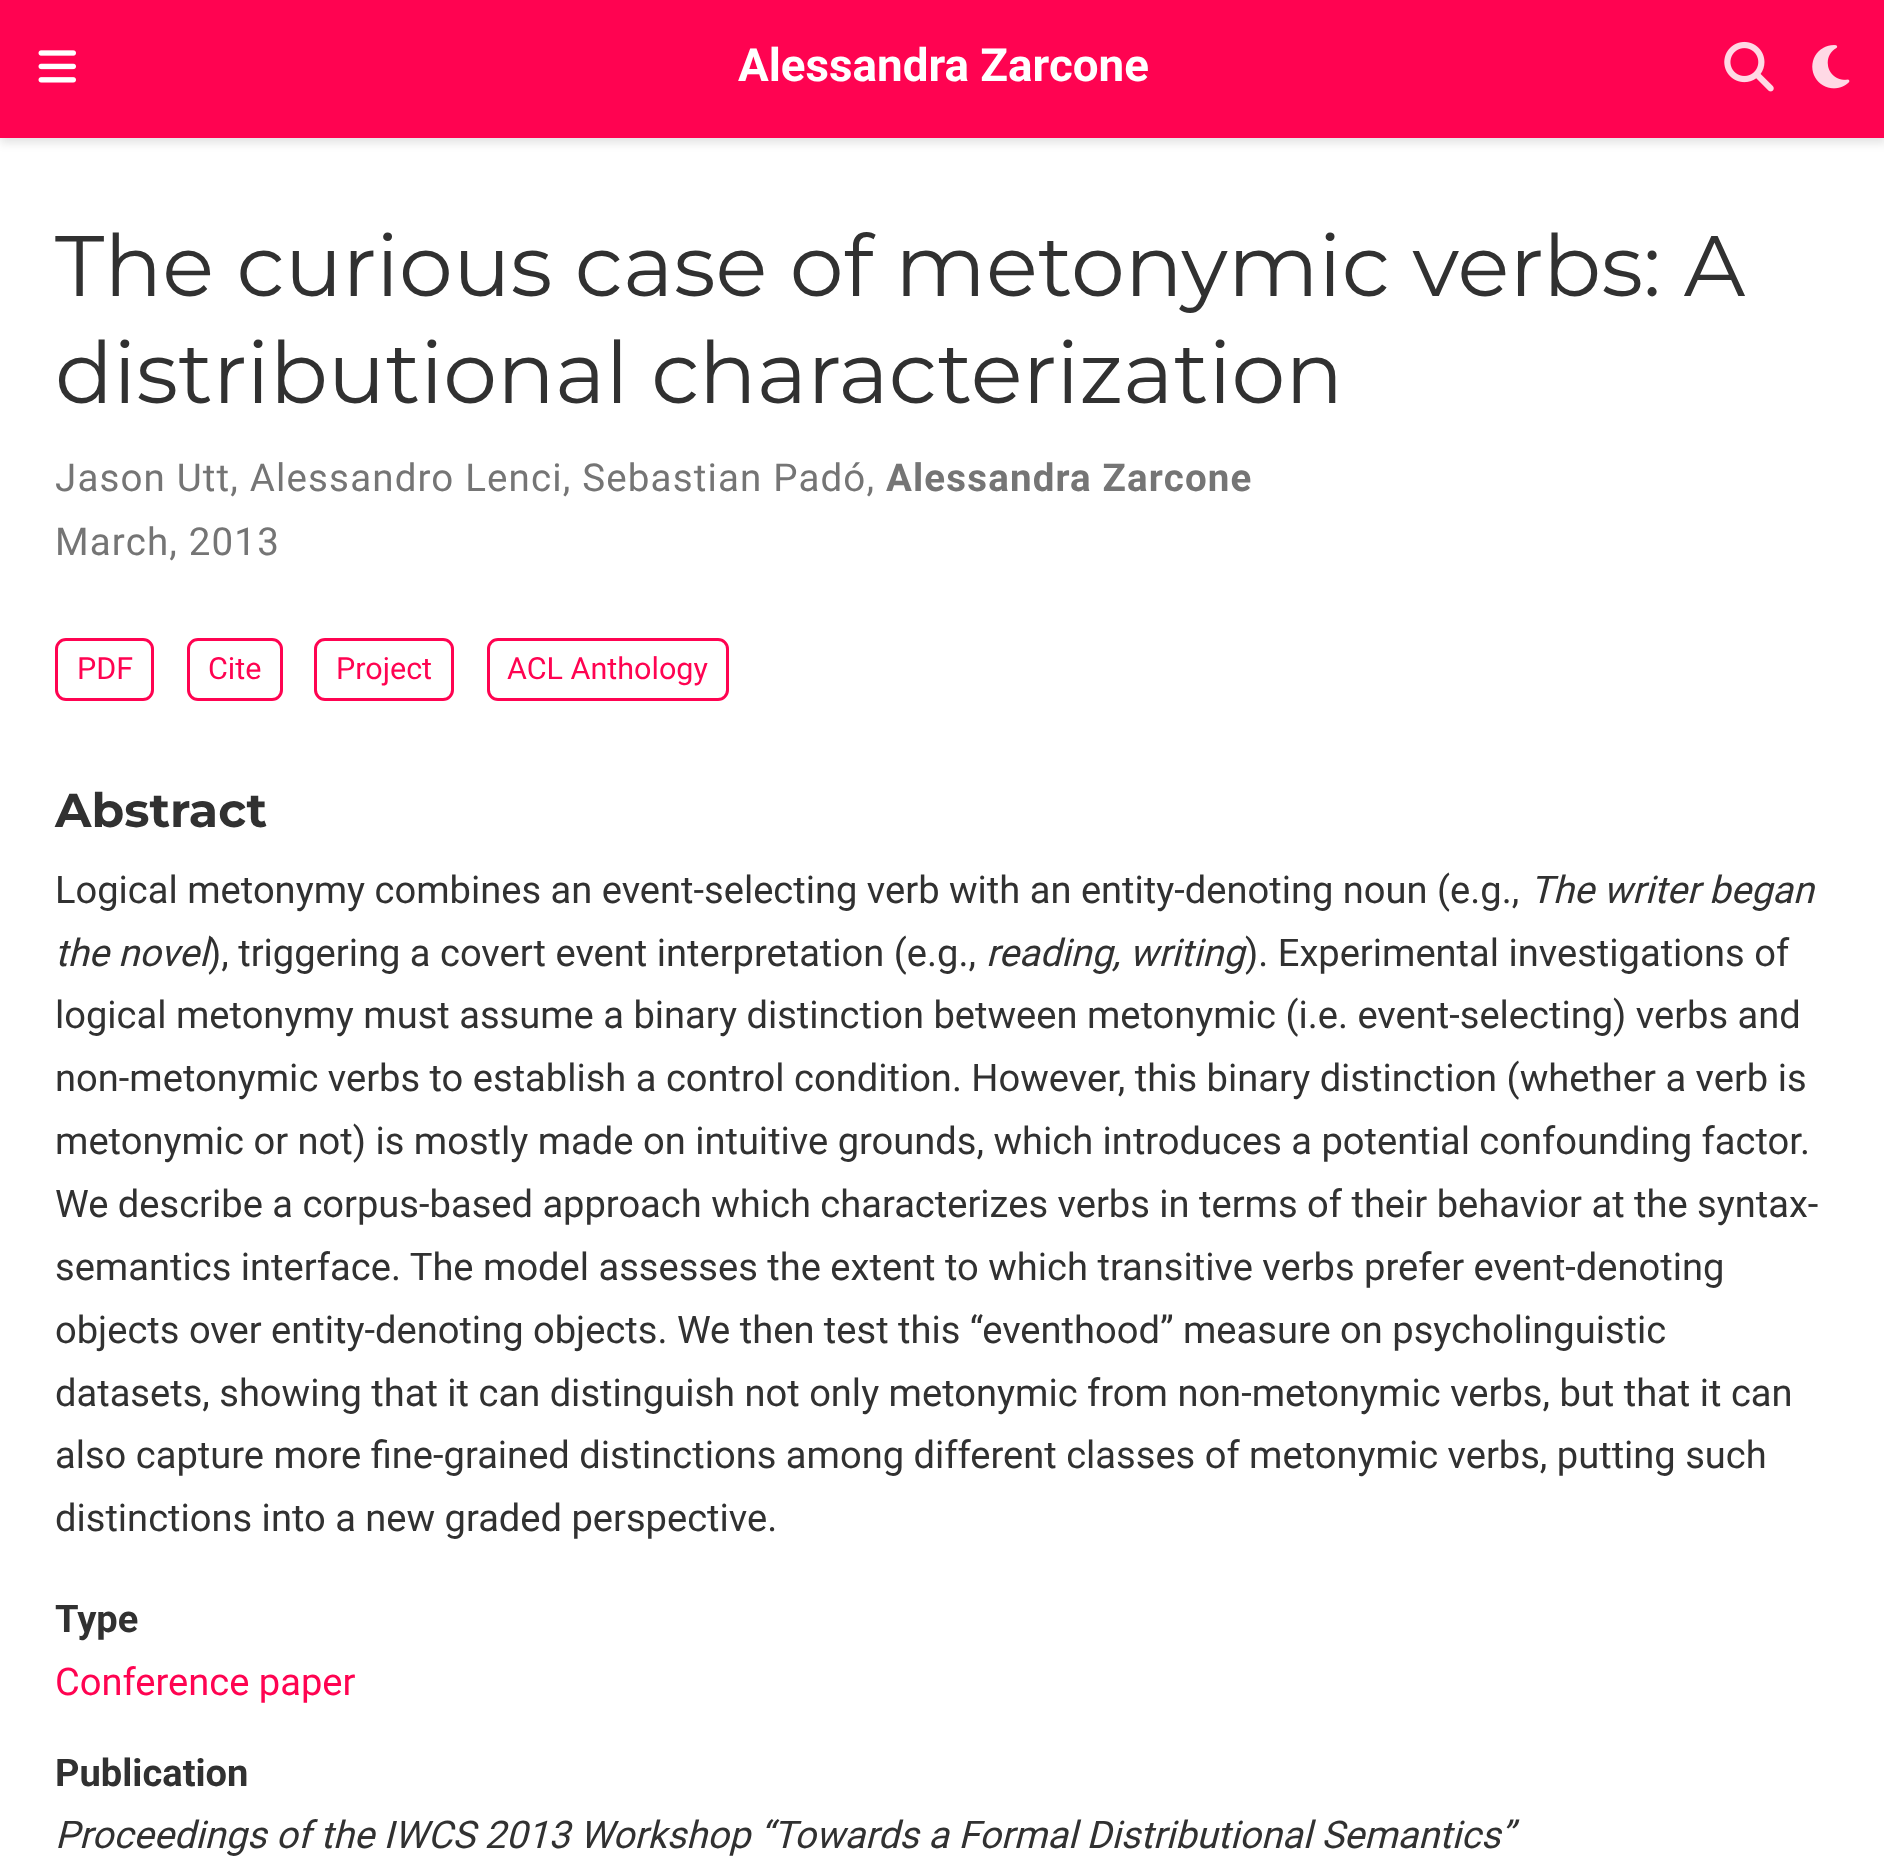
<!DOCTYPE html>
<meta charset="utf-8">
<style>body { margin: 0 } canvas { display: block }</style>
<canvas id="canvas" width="1884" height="1874"></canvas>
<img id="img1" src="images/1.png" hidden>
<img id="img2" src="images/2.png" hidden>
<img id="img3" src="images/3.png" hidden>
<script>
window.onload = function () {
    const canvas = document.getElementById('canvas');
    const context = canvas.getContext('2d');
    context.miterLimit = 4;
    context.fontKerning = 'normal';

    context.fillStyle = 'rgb(255, 255, 255)';
    context.fillRect(0, 0, 1884, 1874);
    context.fillStyle = 'rgba(0, 0, 0, 0.11)';
    context.filter = 'blur(5px)';
    context.beginPath();
    context.rect(0, 6, 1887, 137);
    context.fill();
    context.filter = 'none';
    context.fillStyle = 'rgb(255, 3, 81)';
    context.fillRect(0, 0, 1884, 138);
    context.drawImage(document.getElementById('img1'), 38, 50, 38, 33);
    context.drawImage(document.getElementById('img2'), 1724, 41, 50, 51);
    context.drawImage(document.getElementById('img3'), 1812, 45, 38, 44);
    context.beginPath();
    context.roundRect(56.5, 639.5, 96, 60, 9.5);
    context.strokeStyle = 'rgb(255, 3, 81)';
    context.lineWidth = 3;
    context.stroke();
    context.beginPath();
    context.roundRect(188.5, 639.5, 93, 60, 9.5);
    context.stroke();
    context.beginPath();
    context.roundRect(315.5, 639.5, 137, 60, 9.5);
    context.stroke();
    context.beginPath();
    context.roundRect(488.5, 639.5, 239, 60, 9.5);
    context.stroke();
    context.font = 'bold 45.75px Roboto';
    context.fillStyle = 'rgb(255, 255, 255)';
    context.fillText('Alessandra Zarcone', 738, 81);
    context.font = '85.75px Montserrat';
    context.fillStyle = 'rgb(49, 49, 49)';
    context.fillText('The curious case of metonymic verbs: A', 55, 296);
    context.fillText('distributional characterization', 55, 403);
    context.letterSpacing = '1.15px';
    context.font = '38.5px Roboto';
    context.fillStyle = 'rgb(117, 117, 117)';
    context.fillText('Jason Utt, Alessandro Lenci, Sebastian Padó,', 55, 491);
    context.font = 'bold 38.5px Roboto';
    context.fillText('Alessandra Zarcone', 886, 491);
    context.font = '38.5px Roboto';
    context.fillText('March, 2013', 55, 555);
    context.letterSpacing = '0px';
    context.font = '30.5px Roboto';
    context.fillStyle = 'rgb(255, 3, 81)';
    context.fillText('PDF', 77, 679);
    context.fillText('Cite', 208, 679);
    context.fillText('Project', 336, 679);
    context.fillText('ACL Anthology', 507, 679);
    context.font = 'bold 47.5px Montserrat';
    context.fillStyle = 'rgb(49, 49, 49)';
    context.fillText('Abstract', 55, 827);
    context.font = '38.1px Roboto';
    context.fillText('Logical metonymy combines an event-selecting verb with an entity-denoting noun (e.g.,', 55, 903);
    context.font = 'italic 38.1px Roboto';
    context.fillText('The writer began', 1530, 903);
    context.fillText('the novel', 55, 966);
    context.font = '38.1px Roboto';
    context.fillText('), triggering a covert event interpretation (e.g.,', 208, 966);
    context.font = 'italic 38.1px Roboto';
    context.fillText('reading, writing', 986, 966);
    context.font = '38.1px Roboto';
    context.fillText('). Experimental investigations of', 1245, 966);
    context.fillText('logical metonymy must assume a binary distinction between metonymic (i.e. event-selecting) verbs and', 55, 1028);
    context.fillText('non-metonymic verbs to establish a control condition. However, this binary distinction (whether a verb is', 55, 1091);
    context.fillText('metonymic or not) is mostly made on intuitive grounds, which introduces a potential confounding factor.', 55, 1154);
    context.fillText('We describe a corpus-based approach which characterizes verbs in terms of their behavior at the syntax-', 55, 1217);
    context.fillText('semantics interface. The model assesses the extent to which transitive verbs prefer event-denoting', 55, 1280);
    context.fillText('objects over entity-denoting objects. We then test this “eventhood” measure on psycholinguistic', 55, 1343);
    context.fillText('datasets, showing that it can distinguish not only metonymic from non-metonymic verbs, but that it can', 55, 1406);
    context.fillText('also capture more fine-grained distinctions among different classes of metonymic verbs, putting such', 55, 1468);
    context.fillText('distinctions into a new graded perspective.', 55, 1531);
    context.font = 'bold 38.1px Roboto';
    context.fillText('Type', 55, 1632);
    context.font = '38.1px Roboto';
    context.fillStyle = 'rgb(255, 3, 81)';
    context.fillText('Conference paper', 55, 1695);
    context.font = 'bold 38.1px Roboto';
    context.fillStyle = 'rgb(49, 49, 49)';
    context.fillText('Publication', 55, 1786);
    context.font = 'italic 38.1px Roboto';
    context.fillText('Proceedings of the IWCS 2013 Workshop “Towards a Formal Distributional Semantics”', 55, 1848);
};
</script>
